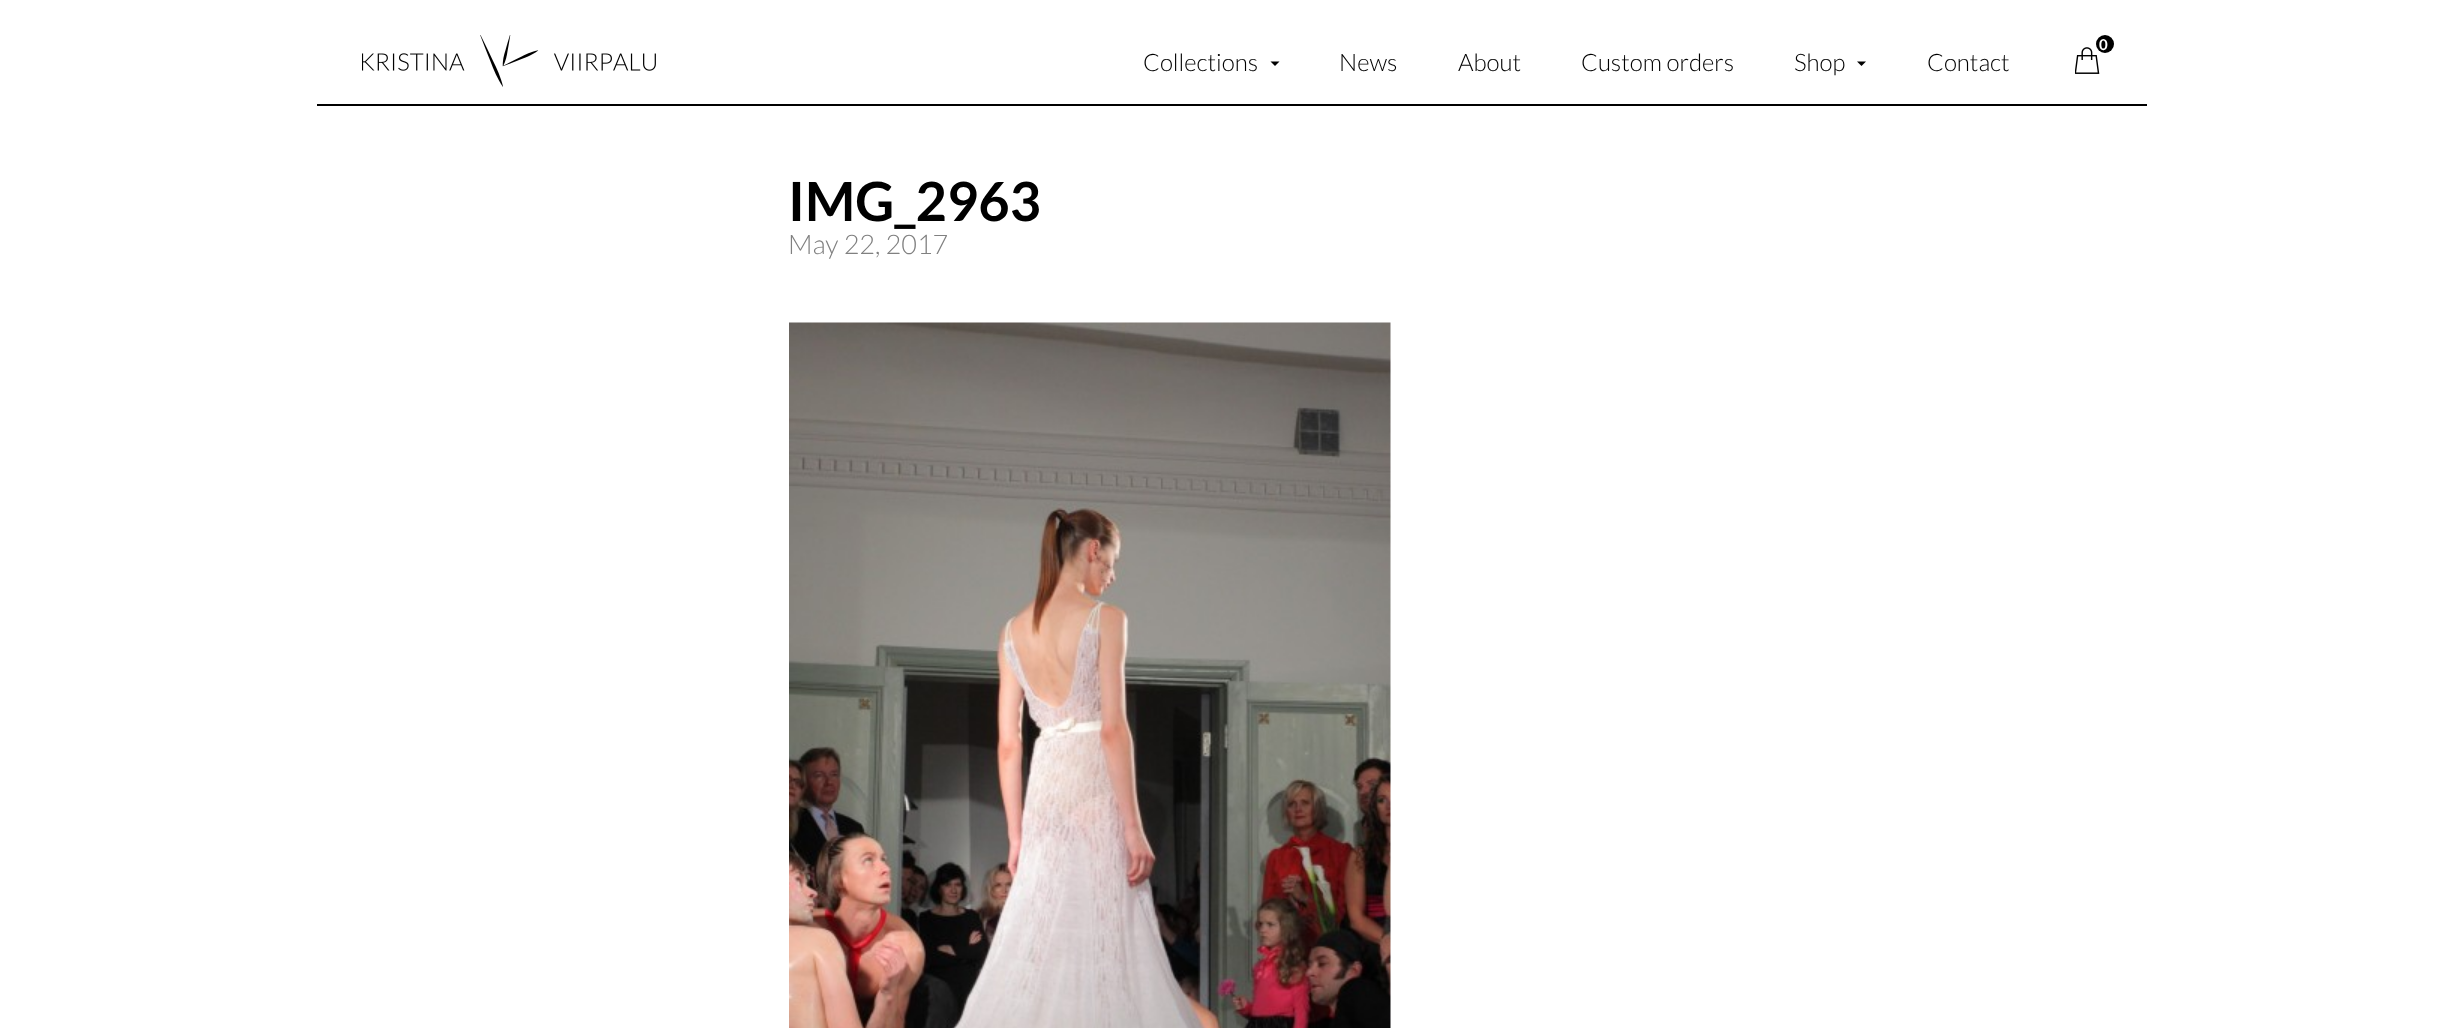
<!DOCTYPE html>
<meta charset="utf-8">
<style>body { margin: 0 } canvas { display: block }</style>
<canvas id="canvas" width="2461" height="1028"></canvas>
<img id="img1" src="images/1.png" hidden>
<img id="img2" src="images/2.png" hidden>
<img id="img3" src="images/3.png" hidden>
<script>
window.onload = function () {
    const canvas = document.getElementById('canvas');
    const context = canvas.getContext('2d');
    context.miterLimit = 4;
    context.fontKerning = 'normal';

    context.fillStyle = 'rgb(255, 255, 255)';
    context.fillRect(0, 0, 2461, 1028);
    context.fillStyle = 'rgb(0, 0, 0)';
    context.fillRect(317, 104, 1830, 2);
    context.drawImage(document.getElementById('img1'), 362, 35, 294, 52);
    context.drawImage(document.getElementById('img2'), 2075, 47, 25, 27);
    context.beginPath();
    context.arc(2105, 44, 9, 0, 2 * Math.PI);
    context.fill();
    context.beginPath();
    context.moveTo(1270.5, 61.5);
    context.lineTo(1279.5, 61.5);
    context.lineTo(1275, 66);
    context.closePath();
    context.fill();
    context.beginPath();
    context.moveTo(1857, 61.5);
    context.lineTo(1866, 61.5);
    context.lineTo(1861.5, 66);
    context.closePath();
    context.fill();
    context.drawImage(document.getElementById('img3'), 789, 322, 602, 706);
    context.font = 'bold 15px Lato';
    context.fillStyle = 'rgb(255, 255, 255)';
    context.fillText('0', 2099, 50);
    context.font = '300 24px Lato';
    context.fillStyle = 'rgb(0, 0, 0)';
    context.fillText('Collections', 1143, 71);
    context.fillText('News', 1339, 71);
    context.fillText('About', 1458, 71);
    context.fillText('Custom orders', 1581, 71);
    context.fillText('Shop', 1794, 71);
    context.fillText('Contact', 1927, 71);
    context.font = 'bold 54px Lato';
    context.fillText('IMG_2963', 788, 221);
    context.font = '300 27px Lato';
    context.fillStyle = 'rgb(128, 128, 128)';
    context.fillText('May 22, 2017', 788, 254);
};
</script>
